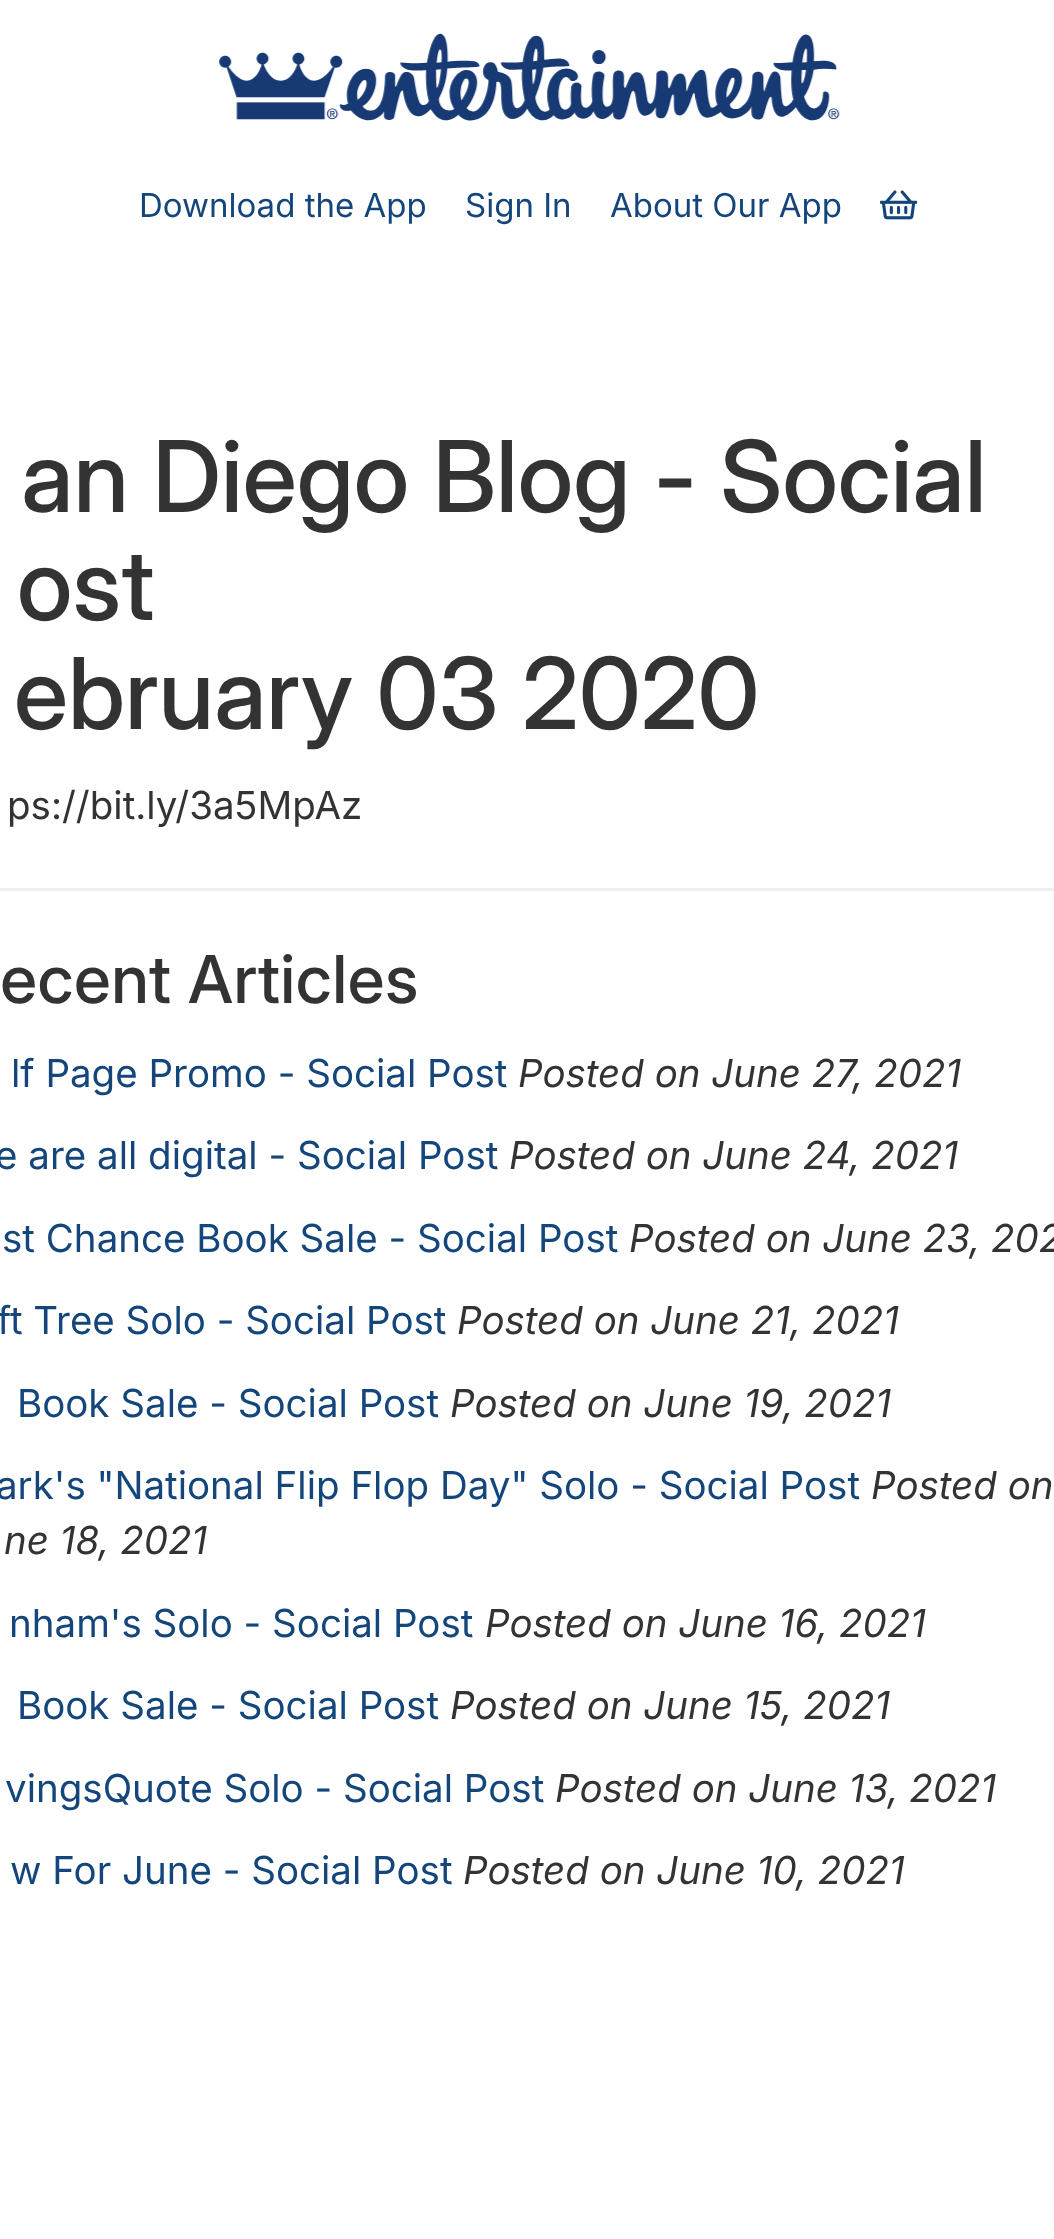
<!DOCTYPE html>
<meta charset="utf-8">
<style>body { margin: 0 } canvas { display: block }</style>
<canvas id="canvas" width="1054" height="2239"></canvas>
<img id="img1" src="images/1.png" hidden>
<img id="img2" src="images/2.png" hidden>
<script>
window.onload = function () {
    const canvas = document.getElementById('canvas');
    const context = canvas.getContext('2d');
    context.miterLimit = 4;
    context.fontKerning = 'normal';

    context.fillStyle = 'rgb(255, 255, 255)';
    context.fillRect(0, 0, 1054, 2239);
    context.drawImage(document.getElementById('img1'), 219, 33, 621, 88);
    context.drawImage(document.getElementById('img2'), 880, 190, 38, 30);
    context.fillStyle = 'rgb(238, 238, 238)';
    context.fillRect(0, 888, 1054, 3);
    context.font = '33px Inter';
    context.fillStyle = 'rgb(20, 70, 124)';
    context.fillText('Download the App', 139, 217);
    context.fillText('Sign In', 465, 217);
    context.fillText('About Our App', 610, 217);
    context.font = '500 99px Inter';
    context.fillStyle = 'rgb(51, 51, 51)';
    context.fillText('an Diego Blog - Social', 21, 512);
    context.fillText('ost', 17, 620);
    context.fillText('ebruary 03 2020', 14, 729);
    context.font = '38.5px Inter';
    context.fillText('ps://bit.ly/3a5MpAz', 7, 819);
    context.font = '500 66px "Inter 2"';
    context.fillText('ecent Articles', 0, 1003);
    context.font = '38.5px Inter';
    context.fillStyle = 'rgb(20, 70, 124)';
    context.fillText('lf Page Promo - Social Post', 11, 1087);
    context.font = 'italic 38.5px Inter';
    context.fillStyle = 'rgb(51, 51, 51)';
    context.fillText('Posted on June 27, 2021', 518, 1087);
    context.font = '38.5px Inter';
    context.fillStyle = 'rgb(20, 70, 124)';
    context.fillText('e are all digital - Social Post', -5, 1169);
    context.font = 'italic 38.5px Inter';
    context.fillStyle = 'rgb(51, 51, 51)';
    context.fillText('Posted on June 24, 2021', 509, 1169);
    context.font = '38.5px Inter';
    context.fillStyle = 'rgb(20, 70, 124)';
    context.fillText('st Chance Book Sale - Social Post', 2, 1252);
    context.font = 'italic 38.5px Inter';
    context.fillStyle = 'rgb(51, 51, 51)';
    context.fillText('Posted on June 23, 202', 629, 1252);
    context.font = '38.5px Inter';
    context.fillStyle = 'rgb(20, 70, 124)';
    context.fillText('ft Tree Solo - Social Post', -3, 1334);
    context.font = 'italic 38.5px Inter';
    context.fillStyle = 'rgb(51, 51, 51)';
    context.fillText('Posted on June 21, 2021', 457, 1334);
    context.font = '38.5px Inter';
    context.fillStyle = 'rgb(20, 70, 124)';
    context.fillText('Book Sale - Social Post', 17, 1417);
    context.font = 'italic 38.5px Inter';
    context.fillStyle = 'rgb(51, 51, 51)';
    context.fillText('Posted on June 19, 2021', 450, 1417);
    context.font = '38.5px Inter';
    context.fillStyle = 'rgb(20, 70, 124)';
    context.fillText('ark\'s "National Flip Flop Day" Solo - Social Post', -4, 1499);
    context.font = 'italic 38.5px Inter';
    context.fillStyle = 'rgb(51, 51, 51)';
    context.fillText('Posted on', 871, 1499);
    context.fillText('ne 18, 2021', 4, 1554);
    context.font = '38.5px Inter';
    context.fillStyle = 'rgb(20, 70, 124)';
    context.fillText('nham\'s Solo - Social Post', 9, 1637);
    context.font = 'italic 38.5px Inter';
    context.fillStyle = 'rgb(51, 51, 51)';
    context.fillText('Posted on June 16, 2021', 485, 1637);
    context.font = '38.5px Inter';
    context.fillStyle = 'rgb(20, 70, 124)';
    context.fillText('Book Sale - Social Post', 17, 1719);
    context.font = 'italic 38.5px Inter';
    context.fillStyle = 'rgb(51, 51, 51)';
    context.fillText('Posted on June 15, 2021', 450, 1719);
    context.font = '38.5px Inter';
    context.fillStyle = 'rgb(20, 70, 124)';
    context.fillText('vingsQuote Solo - Social Post', 5, 1802);
    context.font = 'italic 38.5px Inter';
    context.fillStyle = 'rgb(51, 51, 51)';
    context.fillText('Posted on June 13, 2021', 555, 1802);
    context.font = '38.5px Inter';
    context.fillStyle = 'rgb(20, 70, 124)';
    context.fillText('w For June - Social Post', 10, 1884);
    context.font = 'italic 38.5px Inter';
    context.fillStyle = 'rgb(51, 51, 51)';
    context.fillText('Posted on June 10, 2021', 463, 1884);
};
</script>
